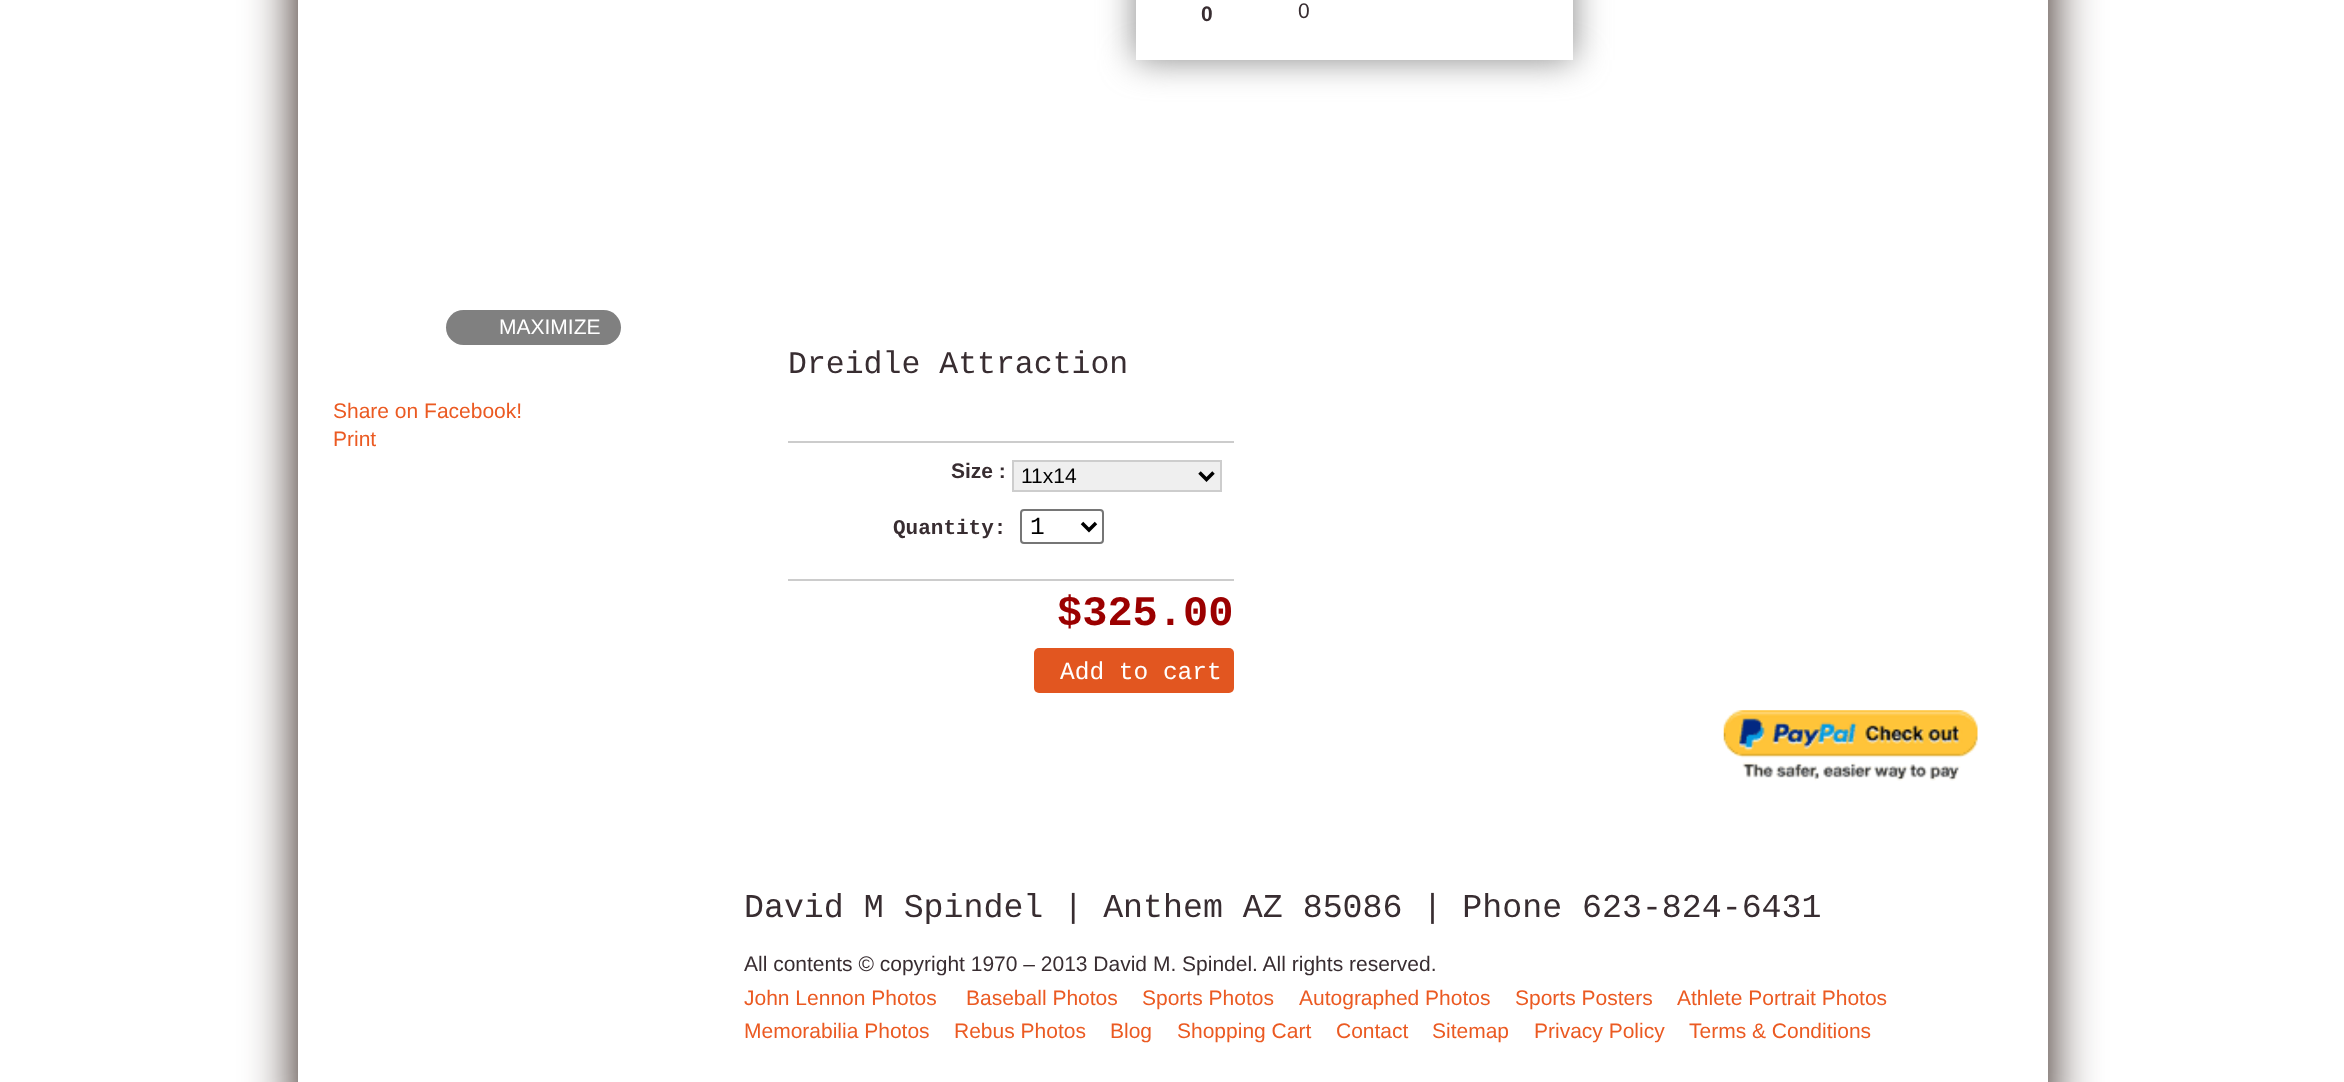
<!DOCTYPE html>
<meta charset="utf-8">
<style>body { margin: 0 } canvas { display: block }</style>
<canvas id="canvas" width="2344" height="1082"></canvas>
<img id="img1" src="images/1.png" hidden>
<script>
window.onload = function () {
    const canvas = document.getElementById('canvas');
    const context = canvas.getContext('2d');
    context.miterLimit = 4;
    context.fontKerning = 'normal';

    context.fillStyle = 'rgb(255, 255, 255)';
    context.fillRect(0, 0, 2344, 1082);
    context.save();
    context.beginPath();
    context.moveTo(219, 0);
    context.lineTo(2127, 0);
    context.lineTo(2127, 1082);
    context.lineTo(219, 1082);
    context.closePath();
    context.moveTo(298, -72);
    context.lineTo(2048, -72);
    context.lineTo(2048, 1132);
    context.lineTo(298, 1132);
    context.closePath();
    context.clip('evenodd');
    context.fillStyle = 'rgb(38, 21, 15)';
    context.filter = 'blur(26px)';
    context.beginPath();
    context.rect(298, -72, 1750, 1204);
    context.fill();
    context.filter = 'none';
    context.restore();
    context.save();
    context.beginPath();
    context.moveTo(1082, 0);
    context.lineTo(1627, 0);
    context.lineTo(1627, 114);
    context.lineTo(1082, 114);
    context.closePath();
    context.moveTo(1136, -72);
    context.lineTo(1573, -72);
    context.lineTo(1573, 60);
    context.lineTo(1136, 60);
    context.closePath();
    context.clip('evenodd');
    context.fillStyle = 'rgb(136, 136, 136)';
    context.filter = 'blur(17.5px)';
    context.beginPath();
    context.rect(1136, -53, 437, 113);
    context.fill();
    context.filter = 'none';
    context.restore();
    context.fillStyle = 'rgb(128, 128, 128)';
    context.beginPath();
    context.roundRect(446, 310, 175, 35, 17.5);
    context.fill();
    context.fillStyle = 'rgb(204, 204, 204)';
    context.fillRect(788, 441, 446, 2);
    context.fillStyle = 'rgb(239, 239, 239)';
    context.beginPath();
    context.rect(1013, 461, 208, 30);
    context.fill();
    context.strokeStyle = 'rgb(205, 205, 205)';
    context.lineWidth = 2;
    context.stroke();
    context.beginPath();
    context.moveTo(1199.5, 472.5);
    context.lineTo(1206.5, 479.5);
    context.lineTo(1213.5, 472.5);
    context.strokeStyle = 'rgb(0, 0, 0)';
    context.lineWidth = 3.5;
    context.stroke();
    context.beginPath();
    context.roundRect(1021, 510, 82, 33, 3);
    context.strokeStyle = 'rgb(118, 118, 118)';
    context.lineWidth = 2;
    context.stroke();
    context.beginPath();
    context.moveTo(1082, 523);
    context.lineTo(1089, 530);
    context.lineTo(1096, 523);
    context.strokeStyle = 'rgb(0, 0, 0)';
    context.lineWidth = 3.5;
    context.stroke();
    context.fillStyle = 'rgb(204, 204, 204)';
    context.fillRect(788, 579, 446, 2);
    context.fillStyle = 'rgb(226, 86, 32)';
    context.beginPath();
    context.roundRect(1034, 648, 200, 45, 5);
    context.fill();
    context.drawImage(document.getElementById('img1'), 1723, 710, 255, 71);
    context.font = 'bold 21px Liberation Sans';
    context.fillStyle = 'rgb(56, 45, 49)';
    context.fillText('0', 1201, 21);
    context.font = '21px Liberation Sans';
    context.fillText('0', 1298, 18);
    context.fillStyle = 'rgb(255, 255, 255)';
    context.fillText('MAXIMIZE', 499, 334);
    context.fillStyle = 'rgb(235, 90, 34)';
    context.fillText('Share on Facebook!', 333, 418);
    context.fillText('Print', 333, 446);
    context.font = '31.5px Liberation Mono';
    context.fillStyle = 'rgb(56, 45, 49)';
    context.fillText('Dreidle Attraction', 788, 373);
    context.font = 'bold 21px Liberation Sans';
    context.fillText('Size :', 951, 478);
    context.font = '21px Liberation Sans';
    context.fillStyle = 'rgb(0, 0, 0)';
    context.fillText('11x14', 1021, 483);
    context.font = 'bold 21px Liberation Mono';
    context.fillStyle = 'rgb(56, 45, 49)';
    context.fillText('Quantity:', 893, 534);
    context.font = '24.5px Liberation Mono';
    context.fillStyle = 'rgb(0, 0, 0)';
    context.fillText('1', 1030, 534);
    context.font = 'bold 42px Liberation Mono';
    context.fillStyle = 'rgb(155, 0, 0)';
    context.fillText('$325.00', 1057, 625);
    context.font = '24.5px Liberation Mono';
    context.fillStyle = 'rgb(255, 255, 255)';
    context.fillText('Add to cart', 1060, 679);
    context.font = '33.25px Liberation Mono';
    context.fillStyle = 'rgb(56, 45, 49)';
    context.fillText('David M Spindel | Anthem AZ 85086 | Phone 623-824-6431', 744, 917);
    context.font = '21px Liberation Sans';
    context.fillText('All contents © copyright 1970 – 2013 David M. Spindel. All rights reserved.', 744, 971);
    context.fillStyle = 'rgb(235, 90, 34)';
    context.fillText('John Lennon Photos', 744, 1005);
    context.fillText('Baseball Photos', 966, 1005);
    context.fillText('Sports Photos', 1142, 1005);
    context.fillText('Autographed Photos', 1299, 1005);
    context.fillText('Sports Posters', 1515, 1005);
    context.fillText('Athlete Portrait Photos', 1677, 1005);
    context.fillText('Memorabilia Photos', 744, 1038);
    context.fillText('Rebus Photos', 954, 1038);
    context.fillText('Blog', 1110, 1038);
    context.fillText('Shopping Cart', 1177, 1038);
    context.fillText('Contact', 1336, 1038);
    context.fillText('Sitemap', 1432, 1038);
    context.fillText('Privacy Policy', 1534, 1038);
    context.fillText('Terms & Conditions', 1689, 1038);
};
</script>
